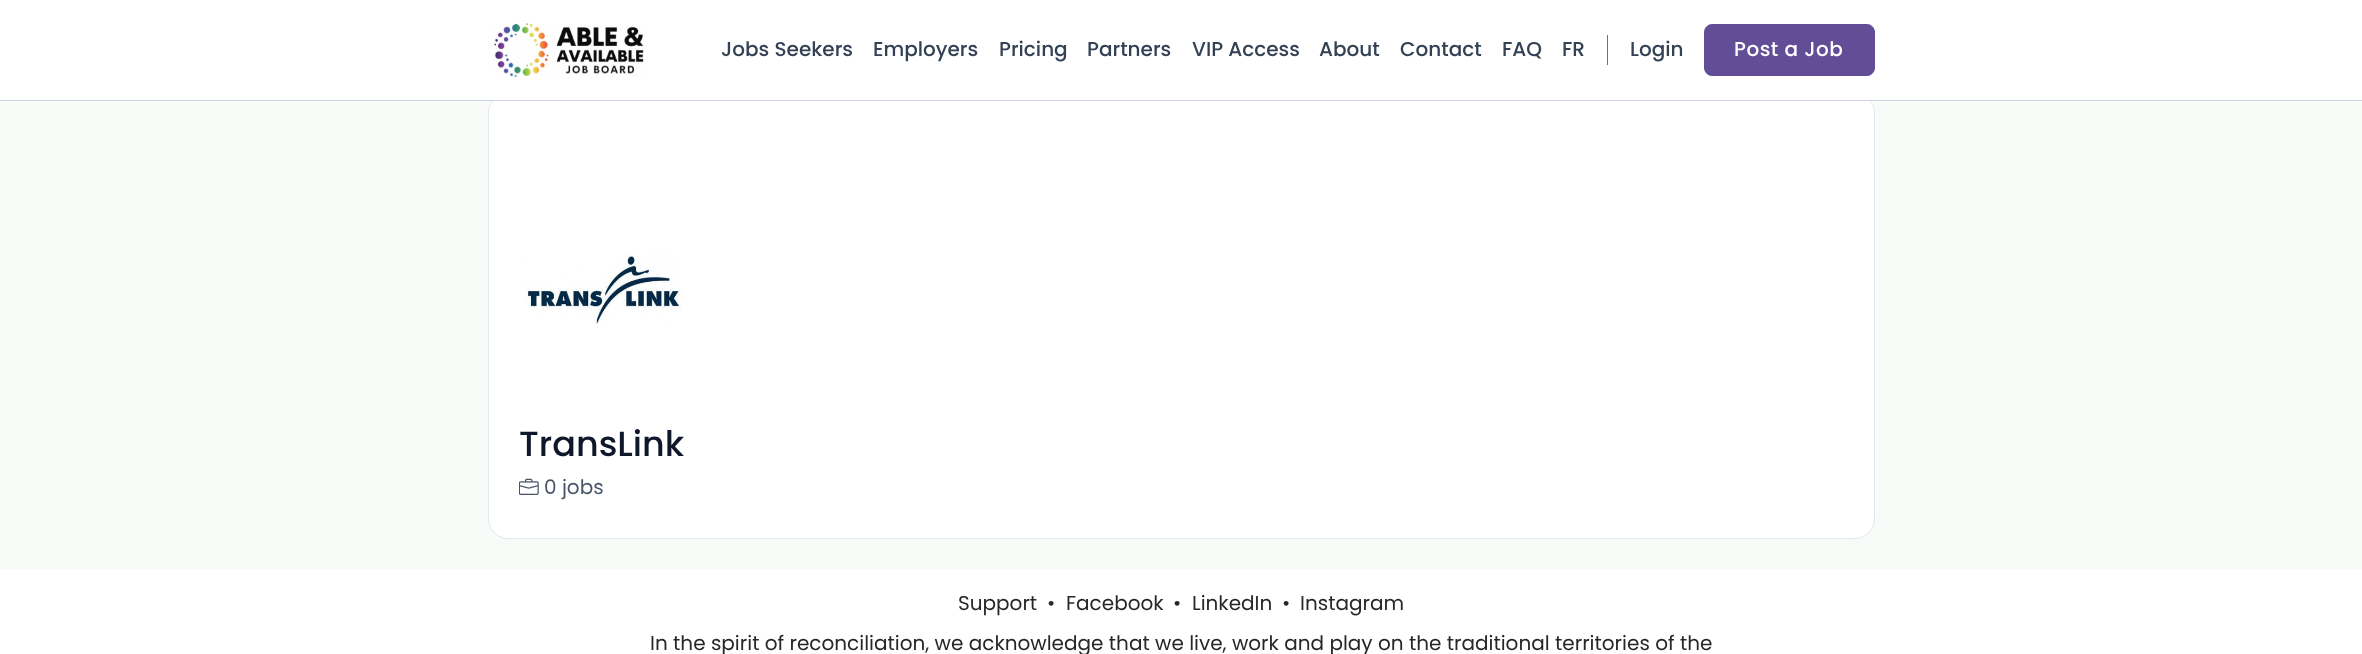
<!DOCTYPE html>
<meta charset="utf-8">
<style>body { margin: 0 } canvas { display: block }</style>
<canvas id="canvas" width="2362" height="654"></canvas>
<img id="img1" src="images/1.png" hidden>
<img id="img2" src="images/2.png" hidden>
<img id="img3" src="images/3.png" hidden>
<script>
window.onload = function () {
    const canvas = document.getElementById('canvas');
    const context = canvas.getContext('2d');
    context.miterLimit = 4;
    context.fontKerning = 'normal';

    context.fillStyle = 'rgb(249, 251, 249)';
    context.fillRect(0, 0, 2362, 654);
    context.fillStyle = 'rgb(255, 255, 255)';
    context.beginPath();
    context.roundRect(488.5, 93.5, 1386, 445, 19.5);
    context.fill();
    context.strokeStyle = 'rgb(226, 232, 240)';
    context.stroke();
    context.beginPath();
    context.roundRect(489, 94, 1385, 250, [19, 19, 0, 0]);
    context.fill();
    context.fillRect(0, 0, 2362, 100);
    context.fillStyle = 'rgb(203, 213, 225)';
    context.fillRect(0, 100, 2362, 1);
    context.drawImage(document.getElementById('img1'), 494, 23, 150, 55);
    context.fillStyle = 'rgb(100, 116, 139)';
    context.fillRect(1607, 35, 1, 30);
    context.fillStyle = 'rgb(98, 77, 150)';
    context.beginPath();
    context.roundRect(1704.5, 24.5, 170, 51, 7.5);
    context.fill();
    context.strokeStyle = 'rgb(98, 77, 150)';
    context.stroke();
    context.drawImage(document.getElementById('img2'), 524, 253, 158, 73);
    context.drawImage(document.getElementById('img3'), 519, 478, 20, 17);
    context.fillStyle = 'rgb(255, 255, 255)';
    context.fillRect(0, 569, 2362, 85);
    context.font = '500 20px Poppins';
    context.fillStyle = 'rgb(51, 65, 85)';
    context.fillText('Jobs Seekers', 721, 56);
    context.fillText('Employers', 873, 56);
    context.fillText('Pricing', 999, 56);
    context.fillText('Partners', 1087, 56);
    context.fillText('VIP Access', 1192, 56);
    context.fillText('About', 1319, 56);
    context.fillText('Contact', 1400, 56);
    context.fillText('FAQ', 1502, 56);
    context.fillText('FR', 1562, 56);
    context.fillText('Login', 1630, 56);
    context.letterSpacing = '0.5px';
    context.fillStyle = 'rgb(255, 255, 255)';
    context.fillText('Post a Job', 1734, 56);
    context.letterSpacing = '0px';
    context.font = '500 35px Poppins';
    context.fillStyle = 'rgb(15, 23, 42)';
    context.fillText('TransLink', 519, 456);
    context.font = '20px Poppins';
    context.fillStyle = 'rgb(71, 85, 105)';
    context.fillText('0 jobs', 544, 494);
    context.fillStyle = 'rgb(41, 38, 38)';
    context.fillText('Support', 958, 610);
    context.fillText('•', 1047, 610);
    context.fillText('Facebook', 1066, 610);
    context.fillText('•', 1173, 610);
    context.fillText('LinkedIn', 1192, 610);
    context.fillText('•', 1282, 610);
    context.fillText('Instagram', 1300, 610);
    context.fillText('In the spirit of reconciliation, we acknowledge that we live, work and play on the traditional territories of the', 650, 650);
};
</script>
